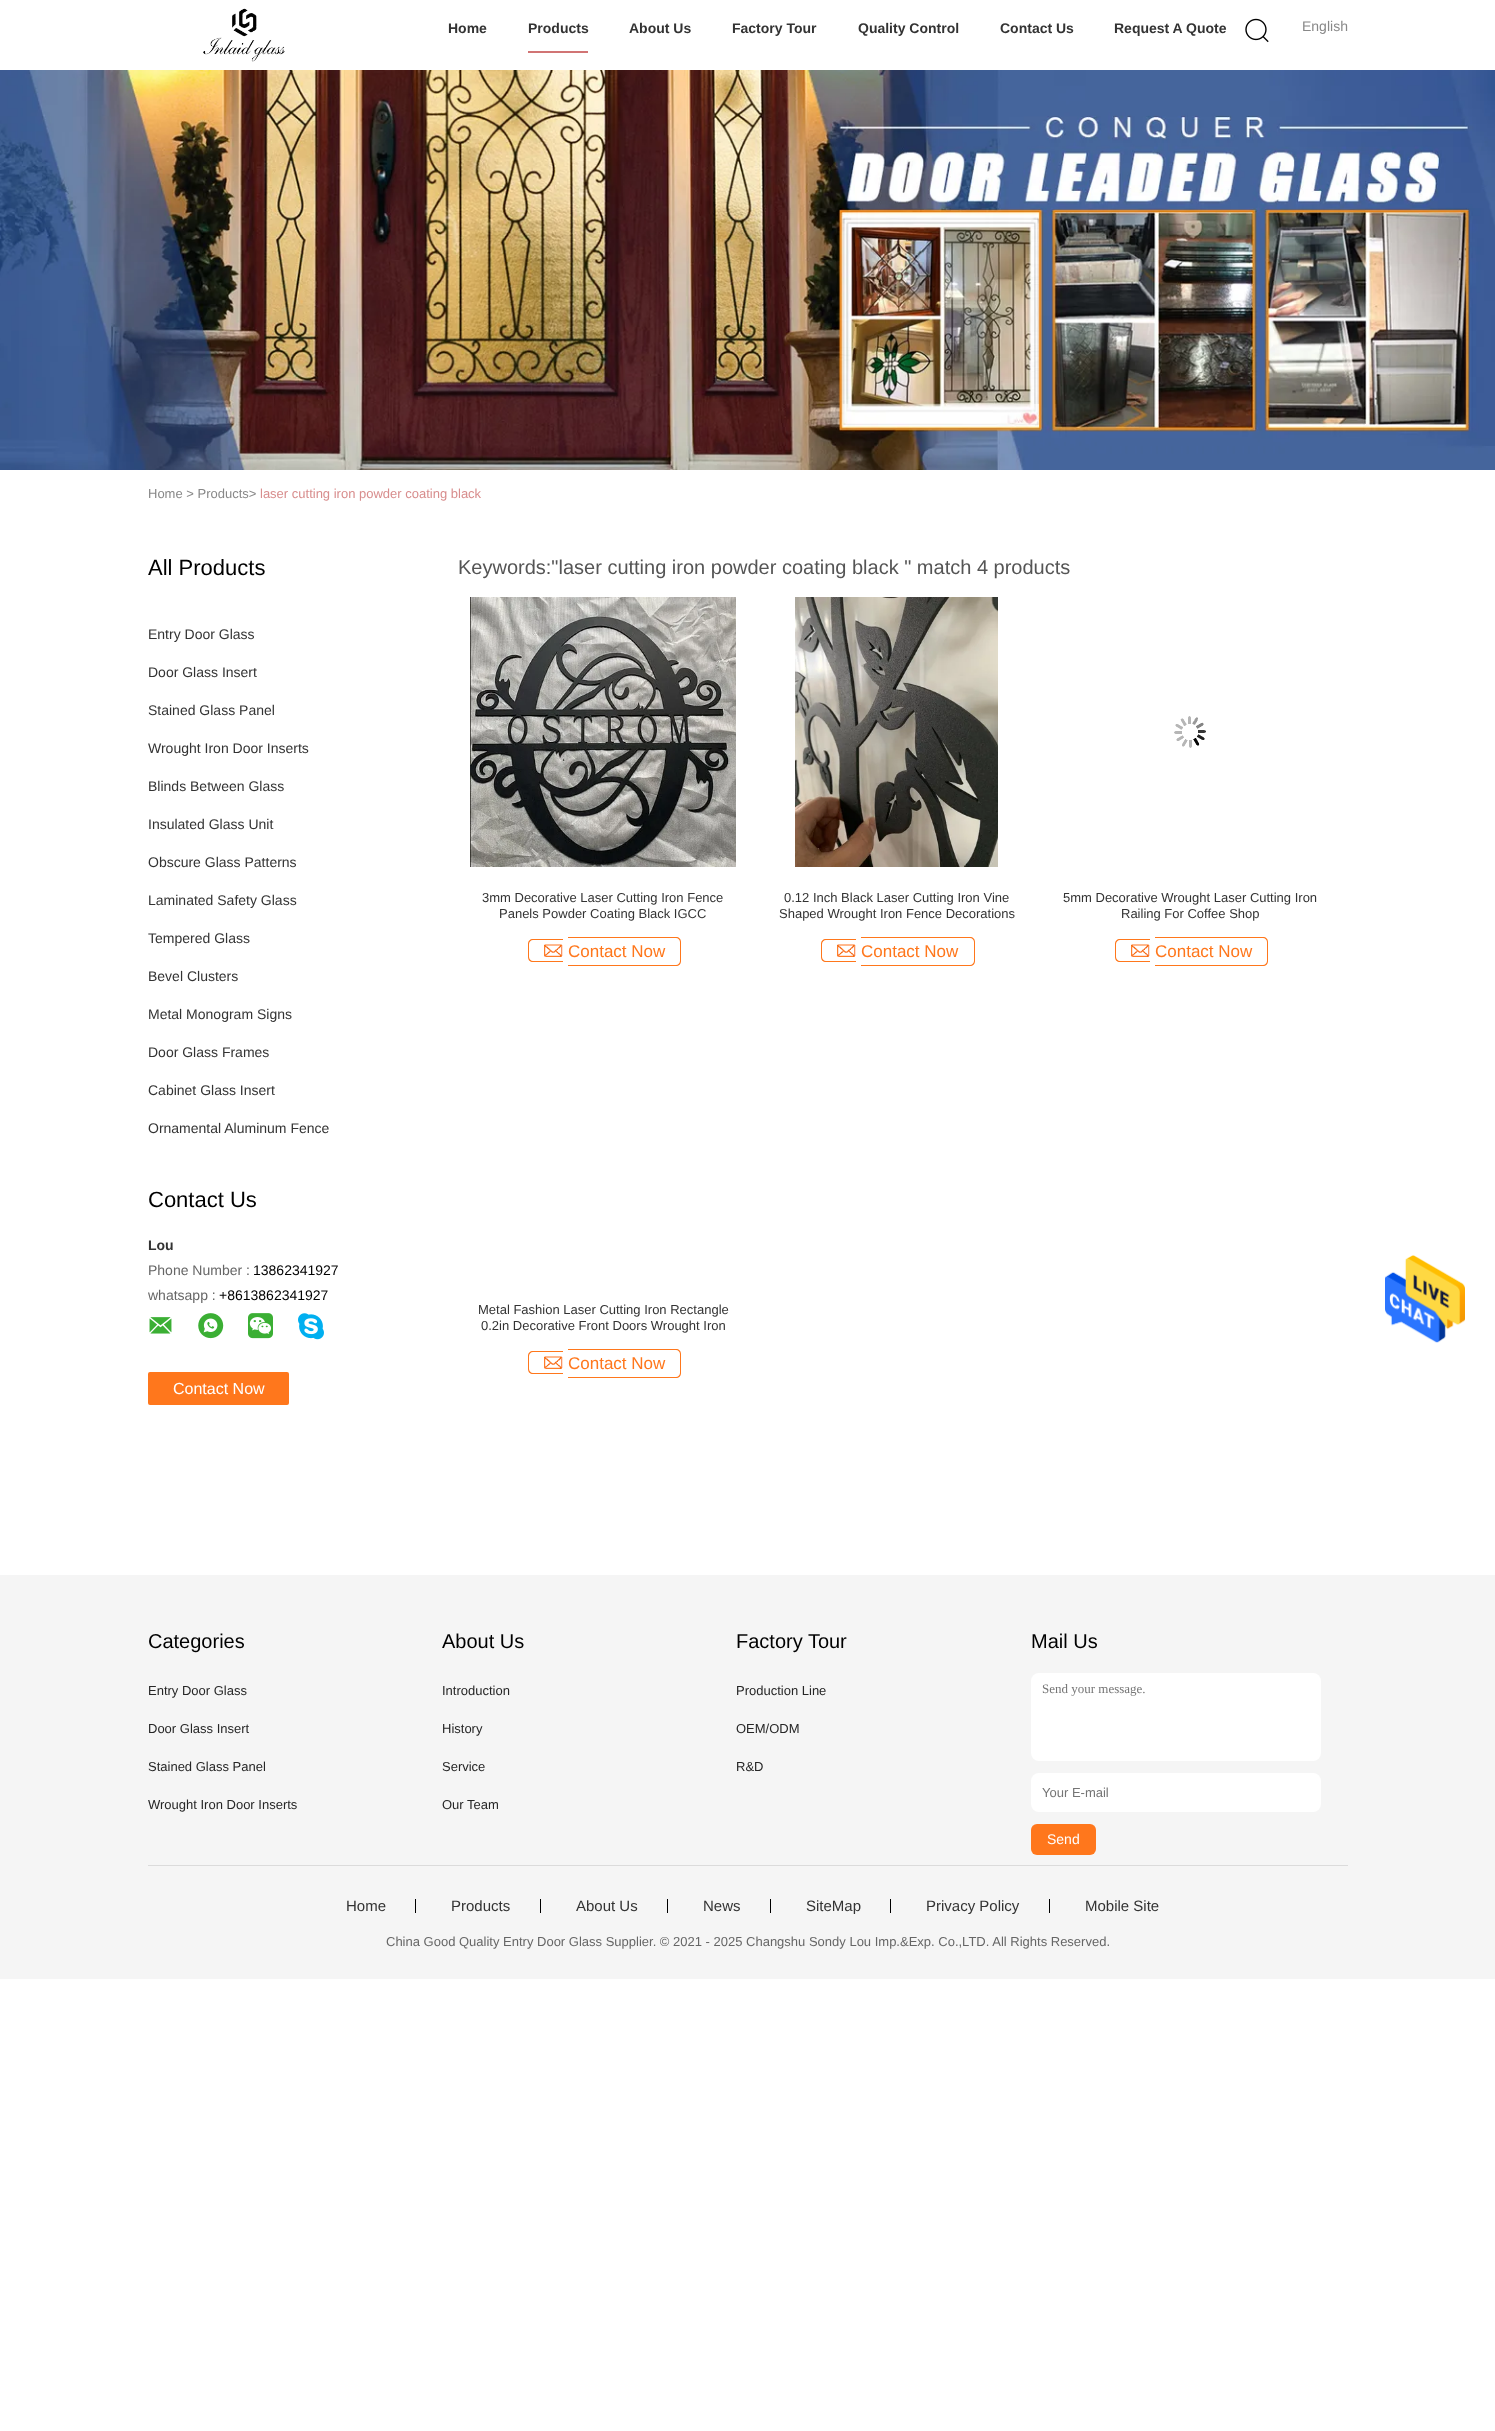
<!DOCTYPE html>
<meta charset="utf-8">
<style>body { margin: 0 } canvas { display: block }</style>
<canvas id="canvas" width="1495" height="2431"></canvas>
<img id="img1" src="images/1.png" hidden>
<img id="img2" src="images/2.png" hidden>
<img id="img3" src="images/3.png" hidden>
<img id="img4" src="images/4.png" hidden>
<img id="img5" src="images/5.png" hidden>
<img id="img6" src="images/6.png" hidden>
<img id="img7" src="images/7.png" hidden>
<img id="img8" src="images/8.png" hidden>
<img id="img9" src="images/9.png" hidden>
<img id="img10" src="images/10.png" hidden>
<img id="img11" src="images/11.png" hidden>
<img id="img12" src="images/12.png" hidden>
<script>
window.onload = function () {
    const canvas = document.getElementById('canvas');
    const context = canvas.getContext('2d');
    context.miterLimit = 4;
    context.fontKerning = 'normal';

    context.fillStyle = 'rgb(255, 255, 255)';
    context.fillRect(0, 0, 1495, 2431);
    context.drawImage(document.getElementById('img1'), 203, 8, 82, 54);
    context.fillStyle = 'rgb(209, 116, 116)';
    context.fillRect(528, 51, 60, 2);
    context.drawImage(document.getElementById('img2'), 1245, 18, 24, 25);
    context.drawImage(document.getElementById('img3'), 0, 70, 1495, 400);
    context.drawImage(document.getElementById('img4'), 149, 1317, 23, 17);
    context.drawImage(document.getElementById('img5'), 198, 1313, 26, 26);
    context.drawImage(document.getElementById('img6'), 248, 1313, 25, 26);
    context.drawImage(document.getElementById('img7'), 298, 1313, 26, 27);
    context.fillStyle = 'rgb(255, 119, 28)';
    context.beginPath();
    context.roundRect(148, 1372, 141, 33, 2);
    context.fill();
    context.drawImage(document.getElementById('img8'), 470, 597, 266, 270);
    context.beginPath();
    context.moveTo(533, 939);
    context.lineTo(563, 939);
    context.lineTo(563, 962);
    context.lineTo(533, 962);
    context.bezierCurveTo(530, 962, 528, 960, 528, 957);
    context.lineTo(528, 944);
    context.bezierCurveTo(528, 941, 530, 939, 533, 939);
    context.closePath();
    context.moveTo(533, 940);
    context.lineTo(563, 940);
    context.lineTo(563, 961);
    context.lineTo(533, 961);
    context.bezierCurveTo(531, 961, 529, 959, 529, 957);
    context.lineTo(529, 944);
    context.bezierCurveTo(529, 942, 531, 940, 533, 940);
    context.closePath();
    context.fill('evenodd');
    context.beginPath();
    context.moveTo(568, 937);
    context.lineTo(676, 937);
    context.bezierCurveTo(679, 937, 681, 939, 681, 942);
    context.lineTo(681, 961);
    context.bezierCurveTo(681, 964, 679, 966, 676, 966);
    context.lineTo(568, 966);
    context.closePath();
    context.moveTo(568, 938);
    context.lineTo(676, 938);
    context.bezierCurveTo(678, 938, 680, 940, 680, 942);
    context.lineTo(680, 961);
    context.bezierCurveTo(680, 963, 678, 965, 676, 965);
    context.lineTo(568, 965);
    context.closePath();
    context.fill('evenodd');
    context.drawImage(document.getElementById('img9'), 544, 944, 19, 13);
    context.drawImage(document.getElementById('img10'), 795, 597, 203, 270);
    context.beginPath();
    context.moveTo(826, 939);
    context.lineTo(856, 939);
    context.lineTo(856, 962);
    context.lineTo(826, 962);
    context.bezierCurveTo(823, 962, 821, 960, 821, 957);
    context.lineTo(821, 944);
    context.bezierCurveTo(821, 941, 823, 939, 826, 939);
    context.closePath();
    context.moveTo(826, 940);
    context.lineTo(856, 940);
    context.lineTo(856, 961);
    context.lineTo(826, 961);
    context.bezierCurveTo(824, 961, 822, 959, 822, 957);
    context.lineTo(822, 944);
    context.bezierCurveTo(822, 942, 824, 940, 826, 940);
    context.closePath();
    context.fill('evenodd');
    context.beginPath();
    context.moveTo(861, 937);
    context.lineTo(970, 937);
    context.bezierCurveTo(973, 937, 975, 939, 975, 942);
    context.lineTo(975, 961);
    context.bezierCurveTo(975, 964, 973, 966, 970, 966);
    context.lineTo(861, 966);
    context.closePath();
    context.moveTo(861, 938);
    context.lineTo(970, 938);
    context.bezierCurveTo(972, 938, 974, 940, 974, 942);
    context.lineTo(974, 961);
    context.bezierCurveTo(974, 963, 972, 965, 970, 965);
    context.lineTo(861, 965);
    context.closePath();
    context.fill('evenodd');
    context.drawImage(document.getElementById('img9'), 837, 944, 19, 13);
    context.drawImage(document.getElementById('img11'), 1174, 716, 32, 32);
    context.beginPath();
    context.moveTo(1120, 939);
    context.lineTo(1150, 939);
    context.lineTo(1150, 962);
    context.lineTo(1120, 962);
    context.bezierCurveTo(1117, 962, 1115, 960, 1115, 957);
    context.lineTo(1115, 944);
    context.bezierCurveTo(1115, 941, 1117, 939, 1120, 939);
    context.closePath();
    context.moveTo(1120, 940);
    context.lineTo(1150, 940);
    context.lineTo(1150, 961);
    context.lineTo(1120, 961);
    context.bezierCurveTo(1118, 961, 1116, 959, 1116, 957);
    context.lineTo(1116, 944);
    context.bezierCurveTo(1116, 942, 1118, 940, 1120, 940);
    context.closePath();
    context.fill('evenodd');
    context.beginPath();
    context.moveTo(1155, 937);
    context.lineTo(1263, 937);
    context.bezierCurveTo(1266, 937, 1268, 939, 1268, 942);
    context.lineTo(1268, 961);
    context.bezierCurveTo(1268, 964, 1266, 966, 1263, 966);
    context.lineTo(1155, 966);
    context.closePath();
    context.moveTo(1155, 938);
    context.lineTo(1263, 938);
    context.bezierCurveTo(1265, 938, 1267, 940, 1267, 942);
    context.lineTo(1267, 961);
    context.bezierCurveTo(1267, 963, 1265, 965, 1263, 965);
    context.lineTo(1155, 965);
    context.closePath();
    context.fill('evenodd');
    context.drawImage(document.getElementById('img9'), 1131, 944, 19, 13);
    context.beginPath();
    context.moveTo(533, 1351);
    context.lineTo(563, 1351);
    context.lineTo(563, 1374);
    context.lineTo(533, 1374);
    context.bezierCurveTo(530, 1374, 528, 1372, 528, 1369);
    context.lineTo(528, 1356);
    context.bezierCurveTo(528, 1353, 530, 1351, 533, 1351);
    context.closePath();
    context.moveTo(533, 1352);
    context.lineTo(563, 1352);
    context.lineTo(563, 1373);
    context.lineTo(533, 1373);
    context.bezierCurveTo(531, 1373, 529, 1371, 529, 1369);
    context.lineTo(529, 1356);
    context.bezierCurveTo(529, 1354, 531, 1352, 533, 1352);
    context.closePath();
    context.fill('evenodd');
    context.beginPath();
    context.moveTo(568, 1349);
    context.lineTo(676, 1349);
    context.bezierCurveTo(679, 1349, 681, 1351, 681, 1354);
    context.lineTo(681, 1373);
    context.bezierCurveTo(681, 1376, 679, 1378, 676, 1378);
    context.lineTo(568, 1378);
    context.closePath();
    context.moveTo(568, 1350);
    context.lineTo(676, 1350);
    context.bezierCurveTo(678, 1350, 680, 1352, 680, 1354);
    context.lineTo(680, 1373);
    context.bezierCurveTo(680, 1375, 678, 1377, 676, 1377);
    context.lineTo(568, 1377);
    context.closePath();
    context.fill('evenodd');
    context.drawImage(document.getElementById('img9'), 544, 1356, 19, 13);
    context.drawImage(document.getElementById('img12'), 1385, 1255, 80, 88);
    context.fillStyle = 'rgb(245, 245, 245)';
    context.fillRect(0, 1575, 1495, 404);
    context.fillStyle = 'rgb(255, 255, 255)';
    context.beginPath();
    context.roundRect(1031, 1673, 290, 88, 8);
    context.fill();
    context.beginPath();
    context.roundRect(1031, 1773, 290, 39, 8);
    context.fill();
    context.fillStyle = 'rgb(255, 119, 28)';
    context.beginPath();
    context.roundRect(1031, 1824, 65, 31, 6);
    context.fill();
    context.fillStyle = 'rgb(219, 219, 219)';
    context.fillRect(148, 1865, 1200, 1);
    context.fillStyle = 'rgb(0, 0, 0)';
    context.fillRect(415, 1899, 1, 14);
    context.fillRect(540, 1899, 1, 14);
    context.fillRect(667, 1899, 1, 14);
    context.fillRect(770, 1899, 1, 14);
    context.fillRect(890, 1899, 1, 14);
    context.fillRect(1049, 1899, 1, 14);
    context.font = 'bold 14px Liberation Sans';
    context.fillStyle = 'rgb(51, 51, 51)';
    context.fillText('Home', 448, 33);
    context.fillText('Products', 528, 33);
    context.fillText('About Us', 629, 33);
    context.fillText('Factory Tour', 732, 33);
    context.fillText('Quality Control', 858, 33);
    context.fillText('Contact Us', 1000, 33);
    context.fillText('Request A Quote', 1114, 33);
    context.font = '14px Liberation Sans';
    context.fillStyle = 'rgb(136, 136, 136)';
    context.fillText('English', 1302, 31);
    context.font = '13px Liberation Sans';
    context.fillText('Home > Products>', 148, 498);
    context.fillStyle = 'rgb(216, 141, 141)';
    context.fillText('laser cutting iron powder coating black', 260, 498);
    context.font = '22px Liberation Sans';
    context.fillStyle = 'rgb(0, 0, 0)';
    context.fillText('All Products', 148, 575);
    context.font = '14px Liberation Sans';
    context.fillStyle = 'rgb(51, 51, 51)';
    context.fillText('Entry Door Glass', 148, 639);
    context.fillText('Door Glass Insert', 148, 677);
    context.fillText('Stained Glass Panel', 148, 715);
    context.fillText('Wrought Iron Door Inserts', 148, 753);
    context.fillText('Blinds Between Glass', 148, 791);
    context.fillText('Insulated Glass Unit', 148, 829);
    context.fillText('Obscure Glass Patterns', 148, 867);
    context.fillText('Laminated Safety Glass', 148, 905);
    context.fillText('Tempered Glass', 148, 943);
    context.fillText('Bevel Clusters', 148, 981);
    context.fillText('Metal Monogram Signs', 148, 1019);
    context.fillText('Door Glass Frames', 148, 1057);
    context.fillText('Cabinet Glass Insert', 148, 1095);
    context.fillText('Ornamental Aluminum Fence', 148, 1133);
    context.font = '22px Liberation Sans';
    context.fillStyle = 'rgb(0, 0, 0)';
    context.fillText('Contact Us', 148, 1207);
    context.font = 'bold 14px Liberation Sans';
    context.fillStyle = 'rgb(51, 51, 51)';
    context.fillText('Lou', 148, 1250);
    context.font = '14px Liberation Sans';
    context.fillStyle = 'rgb(102, 102, 102)';
    context.fillText('Phone Number :', 148, 1275);
    context.fillStyle = 'rgb(0, 0, 0)';
    context.fillText('13862341927', 253, 1275);
    context.fillStyle = 'rgb(102, 102, 102)';
    context.fillText('whatsapp :', 148, 1300);
    context.fillStyle = 'rgb(0, 0, 0)';
    context.fillText('+8613862341927', 219, 1300);
    context.font = '16px Liberation Sans';
    context.fillStyle = 'rgb(255, 255, 255)';
    context.fillText('Contact Now', 173, 1394);
    context.font = '20px Liberation Sans';
    context.fillStyle = 'rgb(85, 85, 85)';
    context.fillText('Keywords:"laser cutting iron powder coating black " match 4 products', 458, 574);
    context.font = '13px Liberation Sans';
    context.fillStyle = 'rgb(51, 51, 51)';
    context.fillText('3mm Decorative Laser Cutting Iron Fence', 482, 902);
    context.fillText('Panels Powder Coating Black IGCC', 499, 918);
    context.font = '17px Liberation Sans';
    context.fillStyle = 'rgb(255, 119, 28)';
    context.fillText('Contact Now', 568, 957);
    context.font = '13px Liberation Sans';
    context.fillStyle = 'rgb(51, 51, 51)';
    context.fillText('0.12 Inch Black Laser Cutting Iron Vine', 784, 902);
    context.fillText('Shaped Wrought Iron Fence Decorations', 779, 918);
    context.font = '17px Liberation Sans';
    context.fillStyle = 'rgb(255, 119, 28)';
    context.fillText('Contact Now', 861, 957);
    context.font = '13px Liberation Sans';
    context.fillStyle = 'rgb(51, 51, 51)';
    context.fillText('5mm Decorative Wrought Laser Cutting Iron', 1063, 902);
    context.fillText('Railing For Coffee Shop', 1121, 918);
    context.font = '17px Liberation Sans';
    context.fillStyle = 'rgb(255, 119, 28)';
    context.fillText('Contact Now', 1155, 957);
    context.font = '13px Liberation Sans';
    context.fillStyle = 'rgb(51, 51, 51)';
    context.fillText('Metal Fashion Laser Cutting Iron Rectangle', 478, 1314);
    context.fillText('0.2in Decorative Front Doors Wrought Iron', 481, 1330);
    context.font = '17px Liberation Sans';
    context.fillStyle = 'rgb(255, 119, 28)';
    context.fillText('Contact Now', 568, 1369);
    context.font = '20px Liberation Sans';
    context.fillStyle = 'rgb(0, 0, 0)';
    context.fillText('Categories', 148, 1648);
    context.font = '13px Liberation Sans';
    context.fillStyle = 'rgb(38, 38, 38)';
    context.fillText('Entry Door Glass', 148, 1695);
    context.fillText('Door Glass Insert', 148, 1733);
    context.fillText('Stained Glass Panel', 148, 1771);
    context.fillText('Wrought Iron Door Inserts', 148, 1809);
    context.font = '20px Liberation Sans';
    context.fillStyle = 'rgb(0, 0, 0)';
    context.fillText('About Us', 442, 1648);
    context.font = '13px Liberation Sans';
    context.fillStyle = 'rgb(38, 38, 38)';
    context.fillText('Introduction', 442, 1695);
    context.fillText('History', 442, 1733);
    context.fillText('Service', 442, 1771);
    context.fillText('Our Team', 442, 1809);
    context.font = '20px Liberation Sans';
    context.fillStyle = 'rgb(0, 0, 0)';
    context.fillText('Factory Tour', 736, 1648);
    context.font = '13px Liberation Sans';
    context.fillStyle = 'rgb(38, 38, 38)';
    context.fillText('Production Line', 736, 1695);
    context.fillText('OEM/ODM', 736, 1733);
    context.fillText('R&D', 736, 1771);
    context.font = '20px Liberation Sans';
    context.fillStyle = 'rgb(0, 0, 0)';
    context.fillText('Mail Us', 1031, 1648);
    context.font = '13px Liberation Serif';
    context.fillStyle = 'rgb(117, 117, 117)';
    context.fillText('Send your message.', 1042, 1693);
    context.font = '13px Liberation Sans';
    context.fillText('Your E-mail', 1042, 1797);
    context.font = '14px Liberation Sans';
    context.fillStyle = 'rgb(255, 255, 255)';
    context.fillText('Send', 1047, 1844);
    context.font = '15px Liberation Sans';
    context.fillStyle = 'rgb(51, 51, 51)';
    context.fillText('Home', 346, 1911);
    context.fillText('Products', 451, 1911);
    context.fillText('About Us', 576, 1911);
    context.fillText('News', 703, 1911);
    context.fillText('SiteMap', 806, 1911);
    context.fillText('Privacy Policy', 926, 1911);
    context.fillText('Mobile Site', 1085, 1911);
    context.font = '13px Liberation Sans';
    context.fillStyle = 'rgb(102, 102, 102)';
    context.fillText('China Good Quality Entry Door Glass Supplier. © 2021 - 2025 Changshu Sondy Lou Imp.&Exp. Co.,LTD. All Rights Reserved.', 386, 1946);
};
</script>
